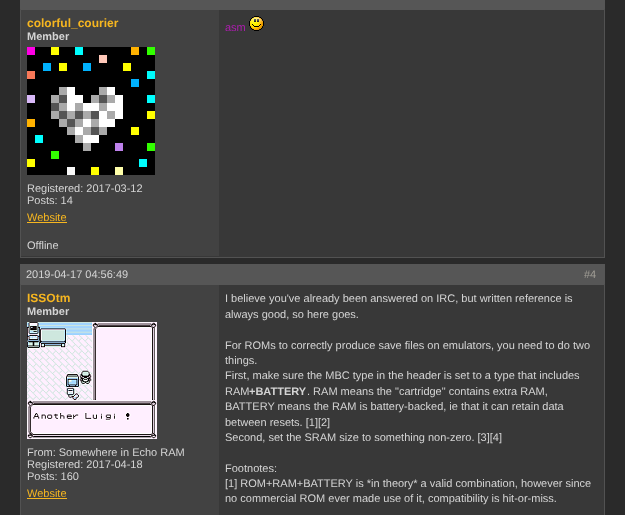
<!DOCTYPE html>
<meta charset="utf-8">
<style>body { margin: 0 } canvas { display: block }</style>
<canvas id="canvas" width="625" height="515"></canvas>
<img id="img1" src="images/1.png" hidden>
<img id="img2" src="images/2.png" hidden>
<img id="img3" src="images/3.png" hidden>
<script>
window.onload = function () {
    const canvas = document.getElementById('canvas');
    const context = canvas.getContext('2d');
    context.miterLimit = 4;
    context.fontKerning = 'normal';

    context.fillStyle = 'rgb(42, 42, 42)';
    context.fillRect(0, 0, 625, 515);
    context.fillStyle = 'rgb(56, 56, 56)';
    context.fillRect(21, 10, 583, 247);
    context.fillStyle = 'rgb(86, 86, 86)';
    context.fillRect(20, 0, 585, 10);
    context.fillStyle = 'rgb(82, 82, 82)';
    context.fillRect(604, 9, 1, 249);
    context.fillRect(20, 257, 585, 1);
    context.fillRect(20, 9, 1, 249);
    context.fillStyle = 'rgb(66, 66, 66)';
    context.fillRect(21, 10, 198, 246);
    context.drawImage(document.getElementById('img1'), 27, 47, 128, 128);
    context.fillStyle = 'rgb(246, 182, 32)';
    context.fillRect(27, 222, 40, 1);
    context.drawImage(document.getElementById('img2'), 249, 16, 15, 15);
    context.fillStyle = 'rgb(56, 56, 56)';
    context.fillRect(219, 285, 385, 230);
    context.fillStyle = 'rgb(86, 86, 86)';
    context.fillRect(20, 264, 585, 21);
    context.fillStyle = 'rgb(82, 82, 82)';
    context.fillRect(604, 284, 1, 231);
    context.fillRect(20, 284, 1, 231);
    context.fillStyle = 'rgb(66, 66, 66)';
    context.fillRect(21, 285, 198, 230);
    context.drawImage(document.getElementById('img3'), 27, 322, 130, 117);
    context.fillStyle = 'rgb(246, 182, 32)';
    context.fillRect(27, 498, 40, 1);
    context.font = 'bold 12px Liberation Sans';
    context.fillText('colorful_courier', 27, 27);
    context.font = 'bold 11px Liberation Sans';
    context.fillStyle = 'rgb(212, 212, 212)';
    context.fillText('Member', 27, 40);
    context.font = '11px Liberation Sans';
    context.fillText('Registered: 2017-03-12', 27, 192);
    context.fillText('Posts: 14', 27, 204);
    context.fillStyle = 'rgb(246, 182, 32)';
    context.fillText('Website', 27, 221);
    context.fillStyle = 'rgb(173, 29, 175)';
    context.fillText('asm', 225, 31);
    context.fillStyle = 'rgb(212, 212, 212)';
    context.fillText('Offline', 27, 249);
    context.fillText('2019-04-17 04:56:49', 26, 278);
    context.fillStyle = 'rgb(161, 158, 150)';
    context.fillText('#4', 584, 278);
    context.font = 'bold 12px Liberation Sans';
    context.fillStyle = 'rgb(246, 182, 32)';
    context.fillText('ISSOtm', 27, 302);
    context.font = 'bold 11px Liberation Sans';
    context.fillStyle = 'rgb(212, 212, 212)';
    context.fillText('Member', 27, 315);
    context.font = '11px Liberation Sans';
    context.fillText('From: Somewhere in Echo RAM', 27, 456);
    context.fillText('Registered: 2017-04-18', 27, 468);
    context.fillText('Posts: 160', 27, 480);
    context.fillStyle = 'rgb(246, 182, 32)';
    context.fillText('Website', 27, 497);
    context.fillStyle = 'rgb(212, 212, 212)';
    context.fillText('I believe you\'ve already been answered on IRC, but written reference is', 225, 302);
    context.fillText('always good, so here goes.', 225, 318);
    context.fillText('For ROMs to correctly produce save files on emulators, you need to do two', 225, 349);
    context.fillText('things.', 225, 364);
    context.fillText('First, make sure the MBC type in the header is set to a type that includes', 225, 379);
    context.fillText('RAM', 225, 395);
    context.font = 'bold 11px Liberation Sans';
    context.fillText('+BATTERY', 249, 395);
    context.font = '11px Liberation Sans';
    context.fillText('. RAM means the "cartridge" contains extra RAM,', 307, 395);
    context.fillText('BATTERY means the RAM is battery-backed, ie that it can retain data', 225, 410);
    context.fillText('between resets. [1][2]', 225, 426);
    context.fillText('Second, set the SRAM size to something non-zero. [3][4]', 225, 441);
    context.fillText('Footnotes:', 225, 472);
    context.fillText('[1] ROM+RAM+BATTERY is *in theory* a valid combination, however since', 225, 487);
    context.fillText('no commercial ROM ever made use of it, compatibility is hit-or-miss.', 225, 502);
};
</script>
